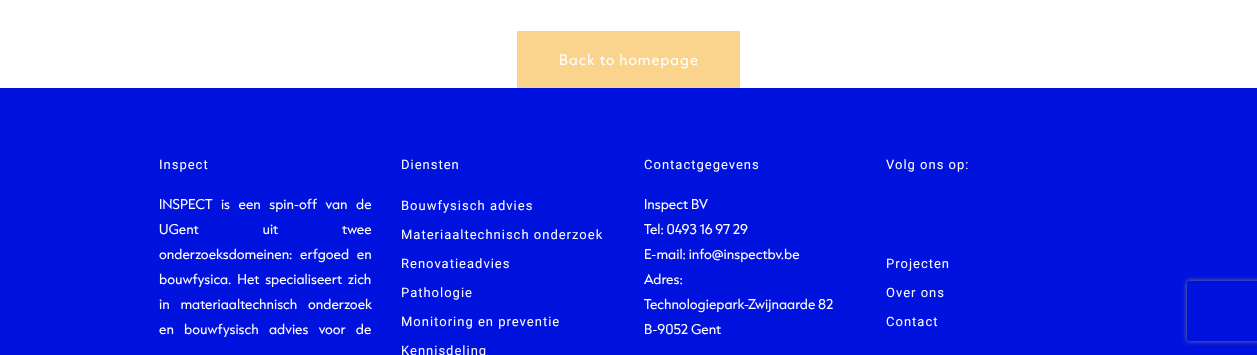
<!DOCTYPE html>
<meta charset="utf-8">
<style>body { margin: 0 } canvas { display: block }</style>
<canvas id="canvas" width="1257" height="355"></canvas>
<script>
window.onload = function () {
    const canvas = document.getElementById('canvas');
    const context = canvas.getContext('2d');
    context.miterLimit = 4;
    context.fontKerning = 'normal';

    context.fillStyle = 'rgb(255, 255, 255)';
    context.fillRect(0, 0, 1257, 355);
    context.fillStyle = 'rgb(250, 211, 140)';
    context.fillRect(517, 31, 223, 57);
    context.fillStyle = 'rgb(0, 19, 222)';
    context.fillRect(0, 88, 1257, 267);
    context.save();
    context.beginPath();
    context.moveTo(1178, 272);
    context.lineTo(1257, 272);
    context.lineTo(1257, 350);
    context.lineTo(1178, 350);
    context.closePath();
    context.moveTo(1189, 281);
    context.lineTo(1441, 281);
    context.bezierCurveTo(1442, 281, 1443, 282, 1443, 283);
    context.lineTo(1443, 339);
    context.bezierCurveTo(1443, 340, 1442, 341, 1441, 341);
    context.lineTo(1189, 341);
    context.bezierCurveTo(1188, 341, 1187, 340, 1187, 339);
    context.lineTo(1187, 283);
    context.bezierCurveTo(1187, 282, 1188, 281, 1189, 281);
    context.closePath();
    context.clip('evenodd');
    context.fillStyle = 'rgb(128, 128, 128)';
    context.filter = 'blur(2.5px)';
    context.beginPath();
    context.roundRect(1187, 281, 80, 60, 2);
    context.fill();
    context.filter = 'none';
    context.restore();
    context.letterSpacing = '1px';
    context.font = '13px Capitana';
    context.fillStyle = 'rgb(255, 255, 255)';
    context.fillText('Back to homepage', 559, 65);
    context.font = '13px Roboto';
    context.fillText('Inspect', 159, 169);
    context.letterSpacing = '0px';
    context.wordSpacing = '5.75px';
    context.font = '12px Capitana';
    context.fillText('INSPECT is een spin-off van de', 159, 209);
    context.wordSpacing = '61px';
    context.fillText('UGent uit twee', 159, 234);
    context.wordSpacing = '5px';
    context.fillText('onderzoeksdomeinen: erfgoed en', 159, 259);
    context.wordSpacing = '3px';
    context.fillText('bouwfysica. Het specialiseert zich', 159, 284);
    context.wordSpacing = '8px';
    context.fillText('in materiaaltechnisch onderzoek', 159, 309);
    context.wordSpacing = '7.5px';
    context.fillText('en bouwfysisch advies voor de', 159, 334);
    context.letterSpacing = '1px';
    context.wordSpacing = '0px';
    context.font = '13px Roboto';
    context.fillText('Diensten', 401, 169);
    context.fillText('Bouwfysisch advies', 401, 210);
    context.fillText('Materiaaltechnisch onderzoek', 401, 239);
    context.fillText('Renovatieadvies', 401, 268);
    context.fillText('Pathologie', 401, 297);
    context.fillText('Monitoring en preventie', 401, 326);
    context.fillText('Kennisdeling', 401, 355);
    context.fillText('Contactgegevens', 644, 169);
    context.letterSpacing = '0px';
    context.font = '12px Capitana';
    context.fillText('Inspect BV', 644, 209);
    context.fillText('Tel: 0493 16 97 29', 644, 234);
    context.fillText('E-mail: info@inspectbv.be', 644, 259);
    context.fillText('Adres:', 644, 284);
    context.fillText('Technologiepark-Zwijnaarde 82', 644, 309);
    context.fillText('B-9052 Gent', 644, 334);
    context.letterSpacing = '1px';
    context.font = '13px Roboto';
    context.fillText('Volg ons op:', 886, 169);
    context.fillText('Projecten', 886, 268);
    context.fillText('Over ons', 886, 297);
    context.fillText('Contact', 886, 326);
};
</script>
